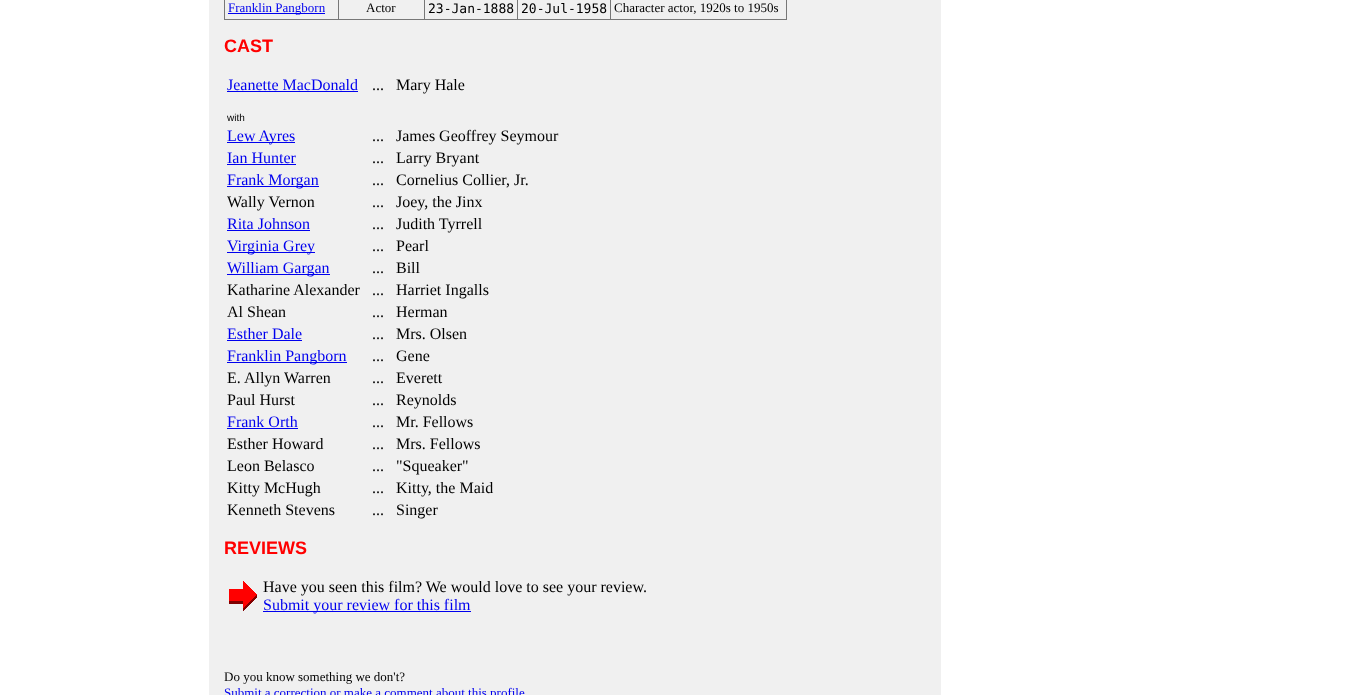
<!DOCTYPE html>
<meta charset="utf-8">
<style>body { margin: 0 } canvas { display: block }</style>
<canvas id="canvas" width="1355" height="695"></canvas>
<img id="img1" src="images/1.png" hidden>
<script>
window.onload = function () {
    const canvas = document.getElementById('canvas');
    const context = canvas.getContext('2d');
    context.miterLimit = 4;
    context.fontKerning = 'normal';

    context.fillStyle = 'rgb(255, 255, 255)';
    context.fillRect(0, 0, 1355, 695);
    context.fillStyle = 'rgb(240, 240, 240)';
    context.fillRect(209, 0, 732, 695);
    context.fillStyle = 'rgb(119, 119, 119)';
    context.fillRect(786, 0, 1, 20);
    context.fillRect(224, 19, 563, 1);
    context.fillRect(224, 0, 1, 20);
    context.fillStyle = 'rgb(0, 0, 238)';
    context.fillRect(228, 13, 97, 1);
    context.fillStyle = 'rgb(119, 119, 119)';
    context.fillRect(338, 0, 1, 20);
    context.fillRect(424, 0, 1, 20);
    context.fillRect(517, 0, 1, 20);
    context.fillRect(610, 0, 1, 20);
    context.fillStyle = 'rgb(0, 0, 238)';
    context.fillRect(227, 91, 131, 1);
    context.fillRect(227, 142, 68, 1);
    context.fillRect(227, 164, 69, 1);
    context.fillRect(227, 186, 92, 1);
    context.fillRect(227, 230, 83, 1);
    context.fillRect(227, 252, 88, 1);
    context.fillRect(227, 274, 103, 1);
    context.fillRect(227, 340, 75, 1);
    context.fillRect(227, 362, 120, 1);
    context.fillRect(227, 428, 71, 1);
    context.drawImage(document.getElementById('img1'), 229, 581, 28, 30);
    context.fillRect(263, 611, 208, 1);
    context.font = '13px Liberation Serif';
    context.fillText('Franklin Pangborn', 228, 12);
    context.fillStyle = 'rgb(0, 0, 0)';
    context.fillText('Actor', 366, 12);
    context.font = '13px DejaVu Sans Mono';
    context.fillText('23-Jan-1888', 428, 13);
    context.fillText('20-Jul-1958', 521, 13);
    context.font = '13px Liberation Serif';
    context.fillText('Character actor, 1920s to 1950s', 614, 12);
    context.font = 'bold 18px Liberation Sans';
    context.fillStyle = 'rgb(255, 0, 0)';
    context.fillText('CAST', 224, 52);
    context.font = '16px Liberation Serif';
    context.fillStyle = 'rgb(0, 0, 238)';
    context.fillText('Jeanette MacDonald', 227, 90);
    context.fillStyle = 'rgb(0, 0, 0)';
    context.fillText('...   Mary Hale', 372, 90);
    context.font = '10px Liberation Sans';
    context.fillText('with', 227, 121);
    context.font = '16px Liberation Serif';
    context.fillStyle = 'rgb(0, 0, 238)';
    context.fillText('Lew Ayres', 227, 141);
    context.fillStyle = 'rgb(0, 0, 0)';
    context.fillText('...   James Geoffrey Seymour', 372, 141);
    context.fillStyle = 'rgb(0, 0, 238)';
    context.fillText('Ian Hunter', 227, 163);
    context.fillStyle = 'rgb(0, 0, 0)';
    context.fillText('...   Larry Bryant', 372, 163);
    context.fillStyle = 'rgb(0, 0, 238)';
    context.fillText('Frank Morgan', 227, 185);
    context.fillStyle = 'rgb(0, 0, 0)';
    context.fillText('...   Cornelius Collier, Jr.', 372, 185);
    context.fillText('Wally Vernon', 227, 207);
    context.fillText('...   Joey, the Jinx', 372, 207);
    context.fillStyle = 'rgb(0, 0, 238)';
    context.fillText('Rita Johnson', 227, 229);
    context.fillStyle = 'rgb(0, 0, 0)';
    context.fillText('...   Judith Tyrrell', 372, 229);
    context.fillStyle = 'rgb(0, 0, 238)';
    context.fillText('Virginia Grey', 227, 251);
    context.fillStyle = 'rgb(0, 0, 0)';
    context.fillText('...   Pearl', 372, 251);
    context.fillStyle = 'rgb(0, 0, 238)';
    context.fillText('William Gargan', 227, 273);
    context.fillStyle = 'rgb(0, 0, 0)';
    context.fillText('...   Bill', 372, 273);
    context.fillText('Katharine Alexander', 227, 295);
    context.fillText('...   Harriet Ingalls', 372, 295);
    context.fillText('Al Shean', 227, 317);
    context.fillText('...   Herman', 372, 317);
    context.fillStyle = 'rgb(0, 0, 238)';
    context.fillText('Esther Dale', 227, 339);
    context.fillStyle = 'rgb(0, 0, 0)';
    context.fillText('...   Mrs. Olsen', 372, 339);
    context.fillStyle = 'rgb(0, 0, 238)';
    context.fillText('Franklin Pangborn', 227, 361);
    context.fillStyle = 'rgb(0, 0, 0)';
    context.fillText('...   Gene', 372, 361);
    context.fillText('E. Allyn Warren', 227, 383);
    context.fillText('...   Everett', 372, 383);
    context.fillText('Paul Hurst', 227, 405);
    context.fillText('...   Reynolds', 372, 405);
    context.fillStyle = 'rgb(0, 0, 238)';
    context.fillText('Frank Orth', 227, 427);
    context.fillStyle = 'rgb(0, 0, 0)';
    context.fillText('...   Mr. Fellows', 372, 427);
    context.fillText('Esther Howard', 227, 449);
    context.fillText('...   Mrs. Fellows', 372, 449);
    context.fillText('Leon Belasco', 227, 471);
    context.fillText('...   "Squeaker"', 372, 471);
    context.fillText('Kitty McHugh', 227, 493);
    context.fillText('...   Kitty, the Maid', 372, 493);
    context.fillText('Kenneth Stevens', 227, 515);
    context.fillText('...   Singer', 372, 515);
    context.font = 'bold 18px Liberation Sans';
    context.fillStyle = 'rgb(255, 0, 0)';
    context.fillText('REVIEWS', 224, 554);
    context.font = '16px Liberation Serif';
    context.fillStyle = 'rgb(0, 0, 0)';
    context.fillText('Have you seen this film? We would love to see your review.', 263, 592);
    context.fillStyle = 'rgb(0, 0, 238)';
    context.fillText('Submit your review for this film', 263, 610);
    context.font = '13px Liberation Serif';
    context.fillStyle = 'rgb(0, 0, 0)';
    context.fillText('Do you know something we don\'t?', 224, 681);
    context.fillStyle = 'rgb(0, 0, 238)';
    context.fillText('Submit a correction or make a comment about this profile', 224, 697);
};
</script>
